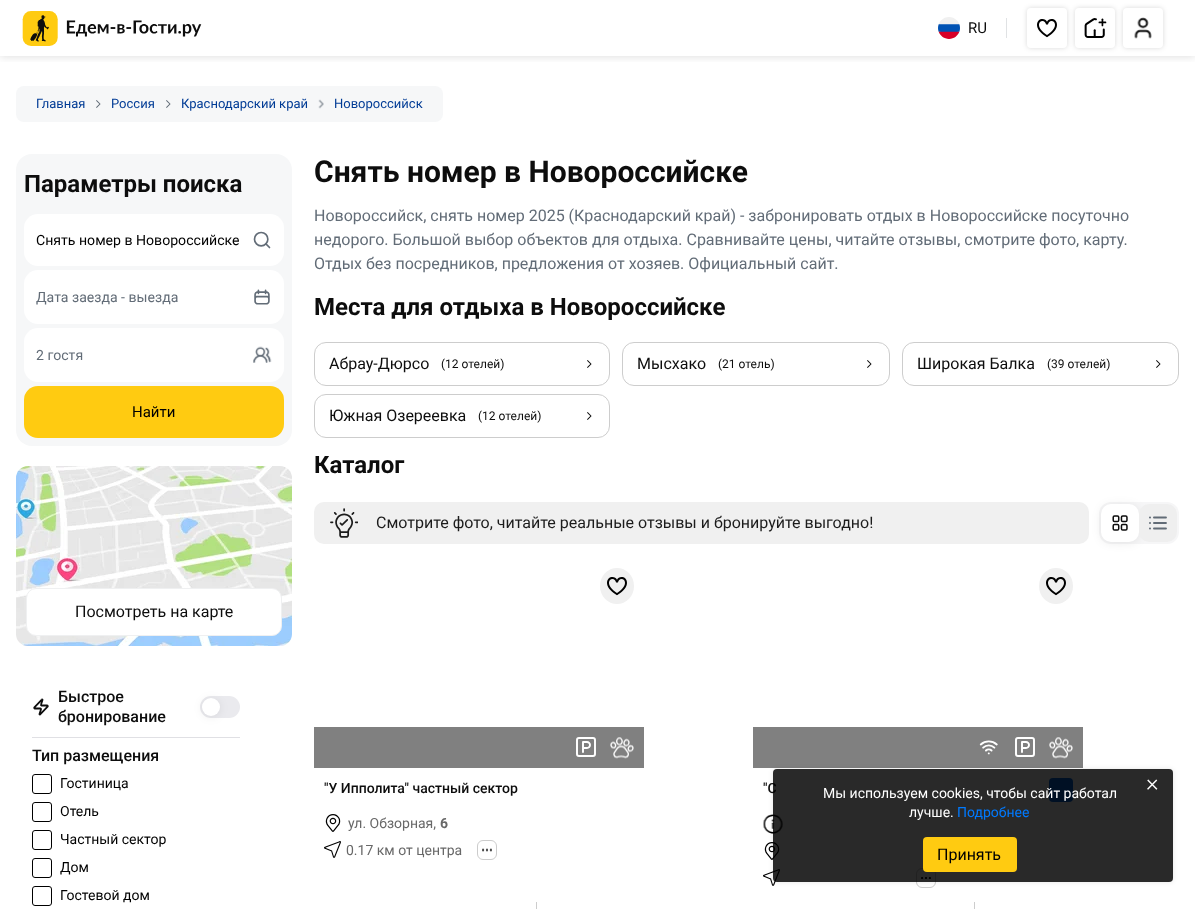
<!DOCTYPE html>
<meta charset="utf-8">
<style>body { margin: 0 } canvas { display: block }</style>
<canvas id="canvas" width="1195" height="909"></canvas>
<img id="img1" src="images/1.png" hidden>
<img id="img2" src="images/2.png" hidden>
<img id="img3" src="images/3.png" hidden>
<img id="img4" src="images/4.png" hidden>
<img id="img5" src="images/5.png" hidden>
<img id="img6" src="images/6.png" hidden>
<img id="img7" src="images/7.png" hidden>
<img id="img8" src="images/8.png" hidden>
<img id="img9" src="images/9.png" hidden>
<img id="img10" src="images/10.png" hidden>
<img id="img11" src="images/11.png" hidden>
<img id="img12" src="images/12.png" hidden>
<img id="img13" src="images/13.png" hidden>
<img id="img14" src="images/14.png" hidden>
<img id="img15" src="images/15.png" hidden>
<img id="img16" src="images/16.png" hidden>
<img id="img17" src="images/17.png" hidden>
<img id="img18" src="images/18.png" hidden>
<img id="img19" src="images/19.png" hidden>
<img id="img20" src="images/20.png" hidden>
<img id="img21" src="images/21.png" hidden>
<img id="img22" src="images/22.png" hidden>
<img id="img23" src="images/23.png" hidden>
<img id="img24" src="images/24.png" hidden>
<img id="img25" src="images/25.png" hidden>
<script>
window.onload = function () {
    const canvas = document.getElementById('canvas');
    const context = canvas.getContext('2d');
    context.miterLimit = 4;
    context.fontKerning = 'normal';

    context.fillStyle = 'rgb(255, 255, 255)';
    context.fillRect(0, 0, 1195, 909);
    context.save();
    context.beginPath();
    context.rect(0, 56, 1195, 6);
    context.clip();
    context.fillStyle = 'rgba(0, 0, 0, 0.15)';
    context.filter = 'blur(5px)';
    context.beginPath();
    context.rect(0, 0, 1195, 56);
    context.fill();
    context.filter = 'none';
    context.restore();
    context.drawImage(document.getElementById('img1'), 22, 11, 180, 35);
    context.drawImage(document.getElementById('img2'), 938, 17, 22, 22);
    context.fillStyle = 'rgb(224, 226, 228)';
    context.fillRect(1006, 18, 1, 20);
    context.fillStyle = 'rgba(0, 0, 0, 0.15)';
    context.filter = 'blur(2.5px)';
    context.beginPath();
    context.roundRect(1027, 8, 40, 40, 4);
    context.fill();
    context.filter = 'none';
    context.fillStyle = 'rgb(255, 255, 255)';
    context.beginPath();
    context.roundRect(1027, 8, 40, 40, 4);
    context.fill();
    context.drawImage(document.getElementById('img3'), 1037, 19, 20, 19);
    context.fillStyle = 'rgba(0, 0, 0, 0.15)';
    context.filter = 'blur(2.5px)';
    context.beginPath();
    context.roundRect(1075, 8, 40, 40, 4);
    context.fill();
    context.filter = 'none';
    context.fillStyle = 'rgb(255, 255, 255)';
    context.beginPath();
    context.roundRect(1075, 8, 40, 40, 4);
    context.fill();
    context.drawImage(document.getElementById('img4'), 1084, 18, 23, 20);
    context.fillStyle = 'rgba(0, 0, 0, 0.15)';
    context.filter = 'blur(2.5px)';
    context.beginPath();
    context.roundRect(1123, 8, 40, 40, 4);
    context.fill();
    context.filter = 'none';
    context.fillStyle = 'rgb(255, 255, 255)';
    context.beginPath();
    context.roundRect(1123, 8, 40, 40, 4);
    context.fill();
    context.drawImage(document.getElementById('img5'), 1134, 17, 18, 22);
    context.fillStyle = 'rgb(246, 247, 248)';
    context.beginPath();
    context.roundRect(16, 86, 427, 36, 8);
    context.fill();
    context.drawImage(document.getElementById('img6'), 96, 100, 5, 8);
    context.drawImage(document.getElementById('img6'), 166, 100, 5, 8);
    context.drawImage(document.getElementById('img7'), 318, 99, 6, 10);
    context.beginPath();
    context.roundRect(16, 154, 276, 292, 16);
    context.fill();
    context.fillStyle = 'rgb(255, 255, 255)';
    context.beginPath();
    context.roundRect(24, 214, 260, 52, 14);
    context.fill();
    context.drawImage(document.getElementById('img8'), 253, 231, 18, 18);
    context.beginPath();
    context.roundRect(24, 270, 260, 54, 14);
    context.fill();
    context.drawImage(document.getElementById('img9'), 254, 289, 16, 16);
    context.beginPath();
    context.roundRect(24, 328, 260, 54, 14);
    context.fill();
    context.drawImage(document.getElementById('img10'), 253, 346, 19, 17);
    context.fillStyle = 'rgb(255, 203, 17)';
    context.beginPath();
    context.roundRect(24, 386, 260, 52, 14);
    context.fill();
    context.drawImage(document.getElementById('img11'), 16, 466, 276, 180);
    context.fillStyle = 'rgb(255, 255, 255)';
    context.beginPath();
    context.roundRect(26.5, 588.5, 255, 47, 9.5);
    context.fill();
    context.strokeStyle = 'rgb(239, 240, 241)';
    context.stroke();
    context.drawImage(document.getElementById('img12'), 33, 698, 16, 18);
    context.fillStyle = 'rgb(234, 234, 238)';
    context.beginPath();
    context.roundRect(200, 696, 40, 22, 11);
    context.fill();
    context.fillStyle = 'rgba(0, 0, 0, 0.08)';
    context.filter = 'blur(5px)';
    context.beginPath();
    context.roundRect(202, 699, 18, 18, 9);
    context.fill();
    context.filter = 'none';
    context.fillStyle = 'rgb(255, 255, 255)';
    context.beginPath();
    context.arc(211, 707, 9, 0, 2 * Math.PI);
    context.fill();
    context.fillStyle = 'rgb(224, 224, 228)';
    context.fillRect(32, 737, 208, 1);
    context.beginPath();
    context.roundRect(32.5, 774.5, 19, 19, 2.5);
    context.strokeStyle = 'rgb(0, 0, 0)';
    context.stroke();
    context.beginPath();
    context.roundRect(32.5, 802.5, 19, 19, 2.5);
    context.stroke();
    context.beginPath();
    context.roundRect(32.5, 830.5, 19, 19, 2.5);
    context.stroke();
    context.beginPath();
    context.roundRect(32.5, 858.5, 19, 19, 2.5);
    context.stroke();
    context.beginPath();
    context.roundRect(32.5, 886.5, 19, 19, 2.5);
    context.stroke();
    context.beginPath();
    context.roundRect(314.5, 342.5, 295, 43, 11.5);
    context.strokeStyle = 'rgb(205, 205, 205)';
    context.stroke();
    context.drawImage(document.getElementById('img13'), 587, 360, 5, 8);
    context.beginPath();
    context.roundRect(622.5, 342.5, 267, 43, 11.5);
    context.stroke();
    context.drawImage(document.getElementById('img13'), 867, 360, 5, 8);
    context.beginPath();
    context.roundRect(902.5, 342.5, 276, 43, 11.5);
    context.stroke();
    context.drawImage(document.getElementById('img13'), 1156, 360, 5, 8);
    context.beginPath();
    context.roundRect(314.5, 394.5, 295, 43, 11.5);
    context.stroke();
    context.drawImage(document.getElementById('img13'), 587, 412, 5, 8);
    context.fillStyle = 'rgb(240, 240, 240)';
    context.beginPath();
    context.roundRect(314, 502, 775, 42, 10);
    context.fill();
    context.drawImage(document.getElementById('img14'), 330, 508, 28, 30);
    context.fillStyle = 'rgb(246, 246, 247)';
    context.beginPath();
    context.roundRect(1099, 502, 80, 42, 12);
    context.fill();
    context.fillStyle = 'rgba(0, 0, 0, 0.08)';
    context.filter = 'blur(5px)';
    context.beginPath();
    context.roundRect(1101, 505, 38, 38, 10);
    context.fill();
    context.filter = 'none';
    context.fillStyle = 'rgb(255, 255, 255)';
    context.beginPath();
    context.roundRect(1101, 504, 38, 38, 10);
    context.fill();
    context.drawImage(document.getElementById('img15'), 1112, 515, 16, 16);
    context.fillStyle = 'rgb(239, 239, 239)';
    context.beginPath();
    context.roundRect(1139, 504, 38, 38, 10);
    context.fill();
    context.drawImage(document.getElementById('img16'), 1149, 516, 18, 14);
    context.fillStyle = 'rgb(240, 240, 240)';
    context.beginPath();
    context.ellipse(617, 586, 17, 18, 0, 0, 2 * Math.PI);
    context.fill();
    context.drawImage(document.getElementById('img17'), 607, 577, 20, 19);
    context.fillStyle = 'rgb(128, 128, 128)';
    context.fillRect(314, 727, 330, 41);
    context.drawImage(document.getElementById('img18'), 576, 737, 20, 20);
    context.drawImage(document.getElementById('img19'), 610, 737, 24, 22);
    context.drawImage(document.getElementById('img20'), 325, 814, 16, 18);
    context.drawImage(document.getElementById('img21'), 324, 841, 17, 17);
    context.beginPath();
    context.roundRect(477.5, 840.5, 19, 19, 5.5);
    context.strokeStyle = 'rgb(204, 204, 204)';
    context.stroke();
    context.drawImage(document.getElementById('img22'), 482, 848, 10, 4);
    context.fillStyle = 'rgb(205, 205, 205)';
    context.fillRect(536, 902, 1, 7);
    context.fillStyle = 'rgb(240, 240, 240)';
    context.beginPath();
    context.ellipse(1056, 586, 17, 18, 0, 0, 2 * Math.PI);
    context.fill();
    context.drawImage(document.getElementById('img17'), 1046, 577, 20, 19);
    context.fillStyle = 'rgb(128, 128, 128)';
    context.fillRect(753, 727, 330, 41);
    context.drawImage(document.getElementById('img23'), 979, 740, 19, 15);
    context.drawImage(document.getElementById('img18'), 1015, 737, 20, 20);
    context.drawImage(document.getElementById('img19'), 1049, 737, 24, 22);
    context.fillStyle = 'rgb(0, 102, 221)';
    context.beginPath();
    context.roundRect(1049, 778, 24, 24, 4);
    context.fill();
    context.drawImage(document.getElementById('img24'), 763, 814, 20, 20);
    context.drawImage(document.getElementById('img20'), 764, 842, 16, 18);
    context.drawImage(document.getElementById('img21'), 763, 869, 17, 17);
    context.beginPath();
    context.roundRect(916.5, 868.5, 19, 19, 5.5);
    context.stroke();
    context.drawImage(document.getElementById('img25'), 921, 877, 10, 2);
    context.fillStyle = 'rgb(205, 205, 205)';
    context.fillRect(974, 902, 1, 7);
    context.save();
    context.beginPath();
    context.moveTo(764, 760);
    context.lineTo(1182, 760);
    context.lineTo(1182, 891);
    context.lineTo(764, 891);
    context.closePath();
    context.moveTo(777, 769);
    context.lineTo(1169, 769);
    context.bezierCurveTo(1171, 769, 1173, 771, 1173, 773);
    context.lineTo(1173, 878);
    context.bezierCurveTo(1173, 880, 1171, 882, 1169, 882);
    context.lineTo(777, 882);
    context.bezierCurveTo(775, 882, 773, 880, 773, 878);
    context.lineTo(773, 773);
    context.bezierCurveTo(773, 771, 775, 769, 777, 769);
    context.closePath();
    context.clip('evenodd');
    context.fillStyle = 'rgba(0, 0, 0, 0.1)';
    context.filter = 'blur(2.5px)';
    context.beginPath();
    context.roundRect(773, 769, 400, 113, 4);
    context.fill();
    context.filter = 'none';
    context.restore();
    context.font = '15px Roboto';
    context.fillStyle = 'rgb(13, 13, 13)';
    context.fillText('RU', 968, 33);
    context.font = '13px Roboto';
    context.fillStyle = 'rgb(0, 59, 149)';
    context.fillText('Главная', 36, 108);
    context.fillText('Россия', 111, 108);
    context.fillText('Краснодарский край', 181, 108);
    context.fillText('Новороссийск', 334, 108);
    context.font = 'bold 24px Roboto';
    context.fillStyle = 'rgb(13, 13, 13)';
    context.fillText('Параметры поиска', 24, 192);
    context.font = '14.1px Roboto';
    context.fillStyle = 'rgb(0, 0, 0)';
    context.fillText('Снять номер в Новороссийске', 36, 245);
    context.fillStyle = 'rgb(98, 108, 119)';
    context.fillText('Дата заезда - выезда', 36, 302);
    context.fillText('2 гостя', 36, 360);
    context.font = '15px Roboto';
    context.fillStyle = 'rgb(0, 0, 0)';
    context.fillText('Найти', 132, 417);
    context.font = '16px Roboto';
    context.fillStyle = 'rgb(13, 13, 13)';
    context.fillText('Посмотреть на карте', 75, 617);
    context.font = '500 16px Roboto';
    context.fillText('Быстрое', 58, 702);
    context.fillText('бронирование', 58, 722);
    context.fillText('Тип размещения', 32, 761);
    context.font = '14px Roboto';
    context.fillStyle = 'rgb(0, 0, 0)';
    context.fillText('Гостиница', 60, 788);
    context.fillText('Отель', 60, 816);
    context.fillText('Частный сектор', 60, 844);
    context.fillText('Дом', 60, 872);
    context.fillText('Гостевой дом', 60, 900);
    context.font = 'bold 30px Roboto';
    context.fillStyle = 'rgb(13, 13, 13)';
    context.fillText('Снять номер в Новороссийске', 314, 182);
    context.font = '16px Roboto';
    context.fillStyle = 'rgb(98, 108, 119)';
    context.fillText('Новороссийск, снять номер 2025 (Краснодарский край) - забронировать отдых в Новороссийске посуточно', 314, 221);
    context.fillText('недорого. Большой выбор объектов для отдыха. Сравнивайте цены, читайте отзывы, смотрите фото, карту.', 314, 245);
    context.fillText('Отдых без посредников, предложения от хозяев. Официальный сайт.', 314, 269);
    context.font = 'bold 24px Roboto';
    context.fillStyle = 'rgb(13, 13, 13)';
    context.fillText('Места для отдыха в Новороссийске', 314, 315);
    context.font = '16px Roboto';
    context.fillText('Абрау-Дюрсо', 329, 369);
    context.font = '12px Roboto';
    context.fillText('(12 отелей)', 441, 368);
    context.font = '16px Roboto';
    context.fillText('Мысхако', 637, 369);
    context.font = '12px Roboto';
    context.fillText('(21 отель)', 718, 368);
    context.font = '16px Roboto';
    context.fillText('Широкая Балка', 917, 369);
    context.font = '12px Roboto';
    context.fillText('(39 отелей)', 1047, 368);
    context.font = '16px Roboto';
    context.fillText('Южная Озереевка', 329, 421);
    context.font = '12px Roboto';
    context.fillText('(12 отелей)', 478, 420);
    context.font = 'bold 24px Roboto';
    context.fillText('Каталог', 314, 473);
    context.font = '16px Roboto';
    context.fillStyle = 'rgb(28, 28, 28)';
    context.fillText('Смотрите фото, читайте реальные отзывы и бронируйте выгодно!', 376, 528);
    context.font = '500 14px Roboto';
    context.fillStyle = 'rgb(13, 13, 13)';
    context.fillText('"У Ипполита" частный сектор', 324, 793);
    context.font = '14px Roboto';
    context.fillStyle = 'rgb(104, 104, 104)';
    context.fillText('ул. Обзорная,', 348, 828);
    context.font = 'bold 14px Roboto';
    context.fillText('6', 440, 828);
    context.font = '14px Roboto';
    context.fillText('0.17 км от центра', 346, 855);
    context.font = '500 14px Roboto';
    context.fillStyle = 'rgb(13, 13, 13)';
    context.fillText('"С', 763, 793);
    context.fillStyle = 'rgba(0, 0, 0, 0.84)';
    context.beginPath();
    context.roundRect(773, 769, 400, 113, 4);
    context.fill();
    context.font = '300 24px Roboto';
    context.fillStyle = 'rgb(255, 255, 255)';
    context.fillText('×', 1146, 791);
    context.font = '14px Roboto';
    context.fillText('Мы используем cookies, чтобы сайт работал', 823, 798);
    context.fillText('лучше.', 909, 817);
    context.fillStyle = 'rgb(0, 122, 255)';
    context.fillText('Подробнее', 957, 817);
    context.fillStyle = 'rgb(255, 203, 17)';
    context.beginPath();
    context.roundRect(923, 837, 94, 35, 4);
    context.fill();
    context.font = '16px Roboto';
    context.fillStyle = 'rgb(0, 0, 0)';
    context.fillText('Принять', 937, 860);
};
</script>
